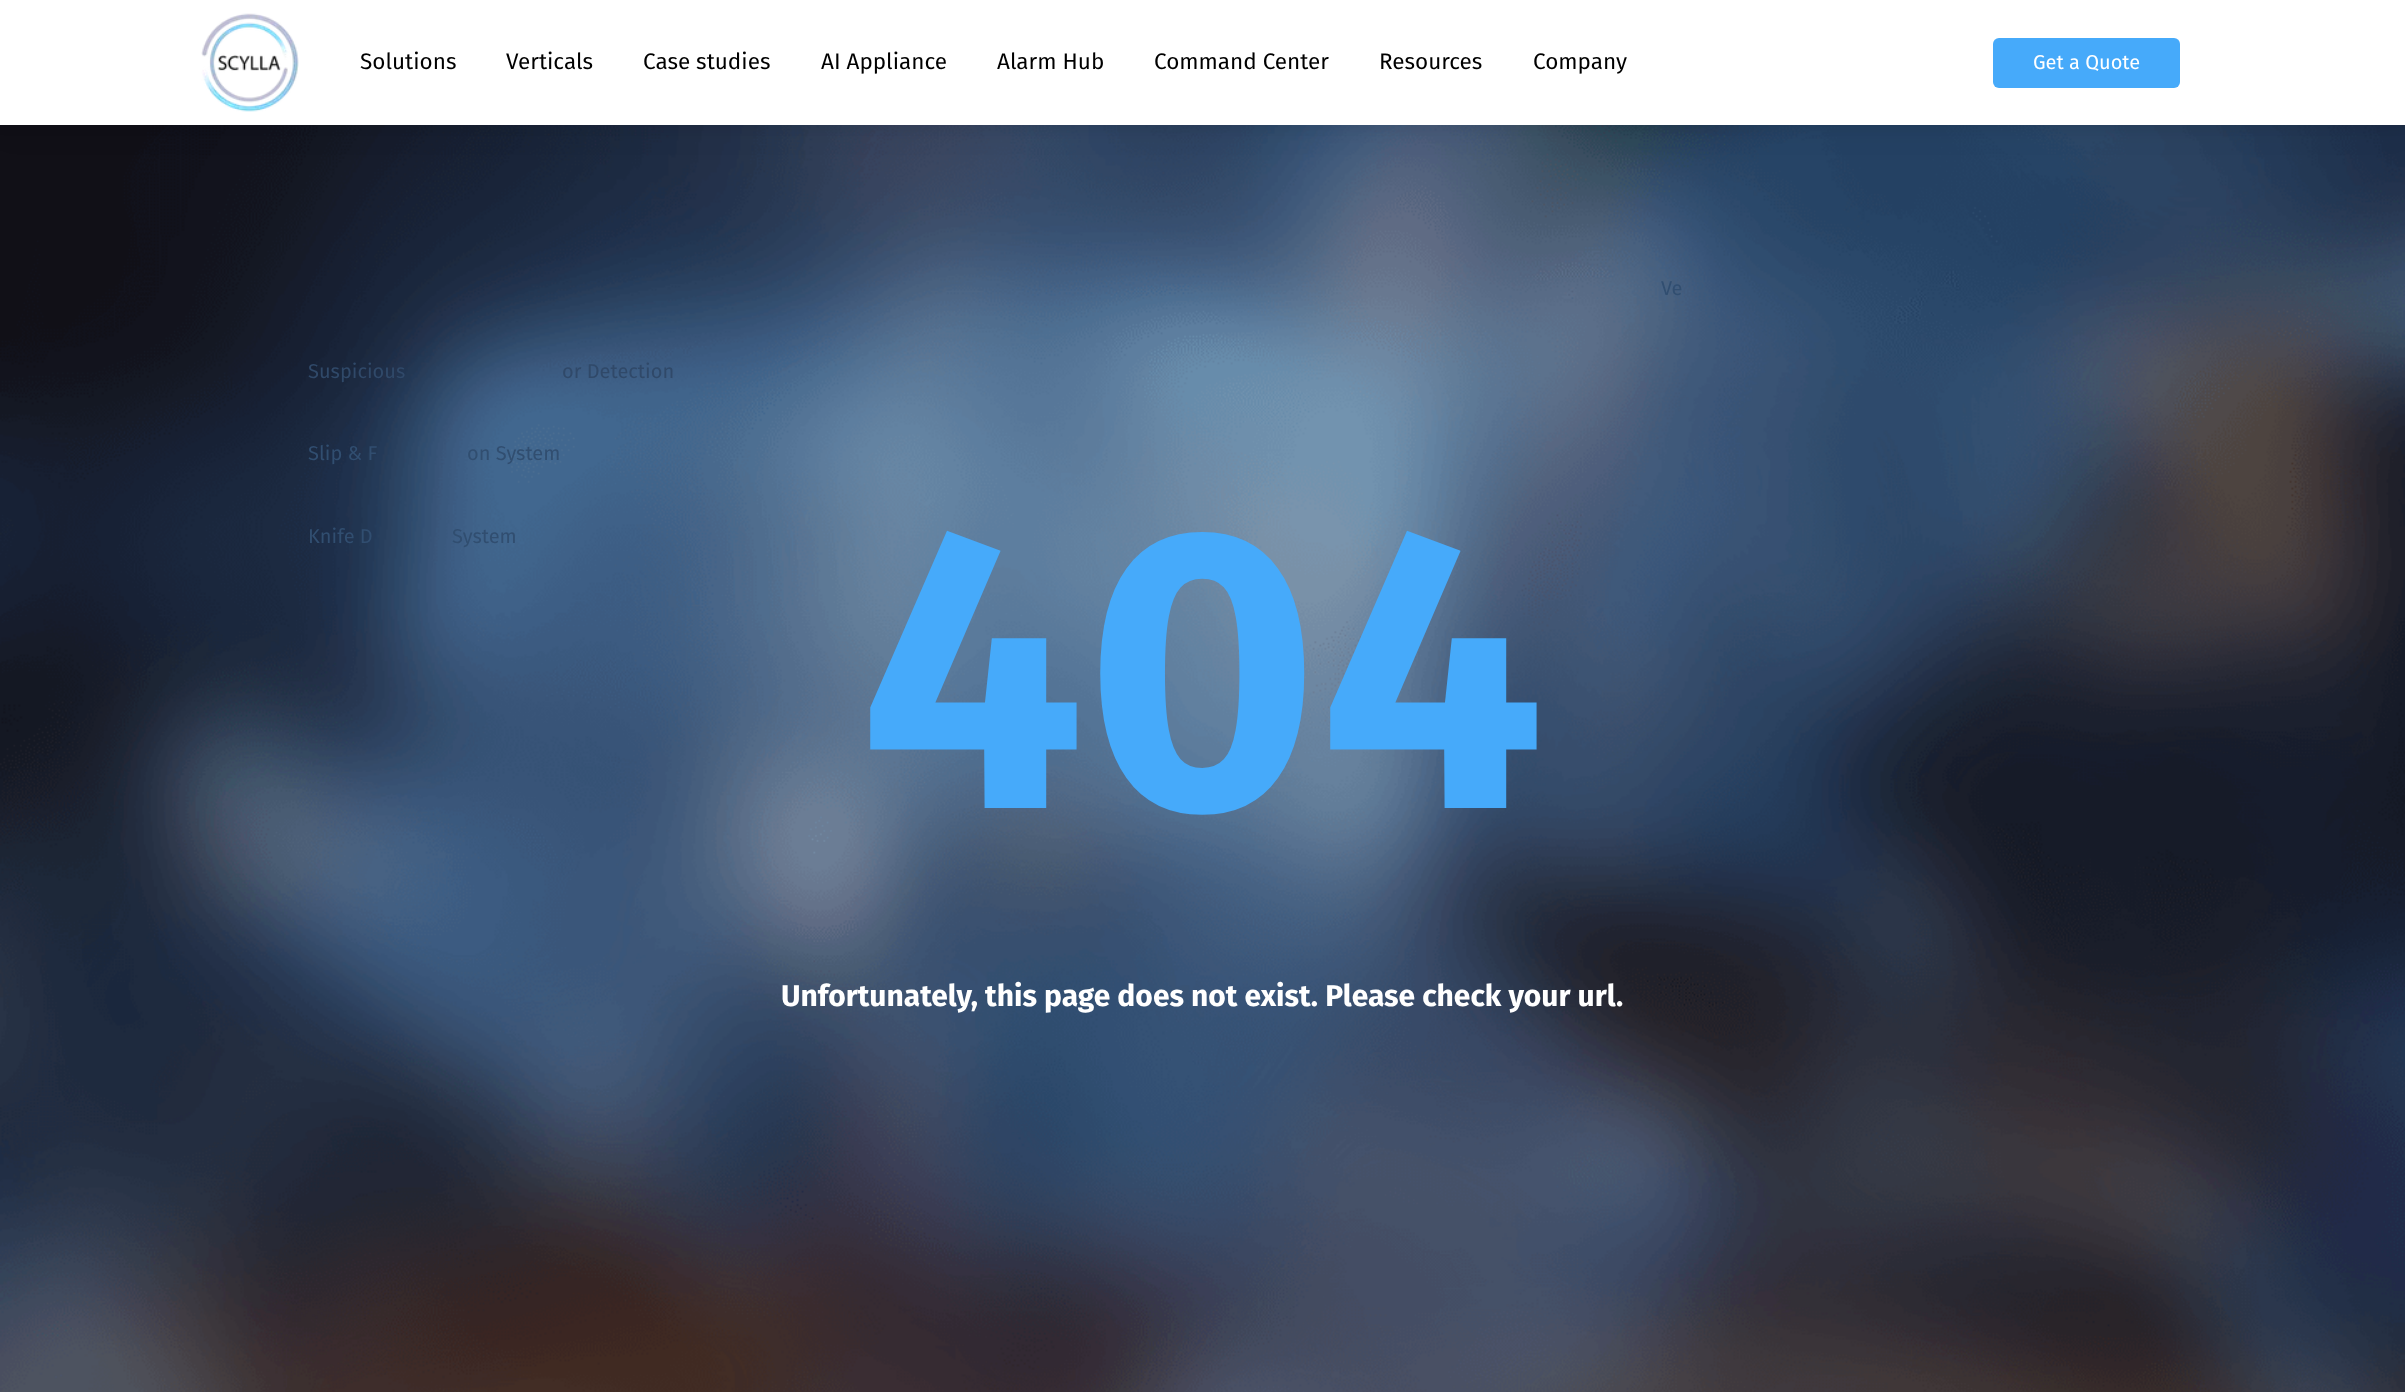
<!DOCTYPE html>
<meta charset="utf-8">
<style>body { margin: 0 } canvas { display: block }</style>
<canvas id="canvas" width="2405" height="1392"></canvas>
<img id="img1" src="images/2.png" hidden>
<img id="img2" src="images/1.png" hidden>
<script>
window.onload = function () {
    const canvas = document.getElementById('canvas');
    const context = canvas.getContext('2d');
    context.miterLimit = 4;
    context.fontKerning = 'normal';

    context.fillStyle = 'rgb(255, 255, 255)';
    context.fillRect(0, 0, 2405, 1392);
    context.drawImage(document.getElementById('img1'), 0, 125, 2405, 1267);
    context.fillStyle = 'rgba(0, 0, 0, 0.05)';
    context.filter = 'blur(15px)';
    context.beginPath();
    context.rect(0, 5, 2405, 125);
    context.fill();
    context.filter = 'none';
    context.filter = 'blur(5px)';
    context.beginPath();
    context.rect(0, 3, 2405, 125);
    context.fill();
    context.filter = 'none';
    context.fillStyle = 'rgb(255, 255, 255)';
    context.fillRect(0, 0, 2405, 125);
    context.drawImage(document.getElementById('img2'), 201, 13, 98, 99);
    context.fillStyle = 'rgb(70, 170, 250)';
    context.beginPath();
    context.roundRect(1993, 38, 187, 50, 6);
    context.fill();
    context.font = '22.5px Fira Sans';
    context.fillStyle = 'rgb(0, 0, 0)';
    context.fillText('Solutions', 360, 69);
    context.font = '20px Fira Sans';
    context.fillStyle = 'rgb(49, 78, 112)';
    context.fillText('Ve', 1661, 295);
    context.fillStyle = 'rgb(48, 73, 105)';
    context.fillText('Suspicious', 308, 378);
    context.fillText('or Detection', 562, 378);
    context.fillStyle = 'rgb(49, 78, 112)';
    context.fillText('Slip & F', 308, 460);
    context.fillText('on System', 467, 460);
    context.fillText('Knife D', 308, 543);
    context.fillText('System', 452, 543);
    context.font = '22.5px Fira Sans';
    context.fillStyle = 'rgb(0, 0, 0)';
    context.fillText('Verticals', 506, 69);
    context.fillText('Case studies', 643, 69);
    context.fillText('AI Appliance', 821, 69);
    context.fillText('Alarm Hub', 997, 69);
    context.fillText('Command Center', 1154, 69);
    context.fillText('Resources', 1379, 69);
    context.fillText('Company', 1533, 69);
    context.font = '20px Fira Sans';
    context.fillStyle = 'rgb(255, 255, 255)';
    context.fillText('Get a Quote', 2033, 69);
    context.font = 'bold 400px Fira Sans';
    context.fillStyle = 'rgb(70, 170, 250)';
    context.fillText('404', 859, 808);
    context.font = 'bold 30px Fira Sans';
    context.fillStyle = 'rgb(255, 255, 255)';
    context.fillText('Unfortunately, this page does not exist. Please check your url.', 781, 1006);
};
</script>
